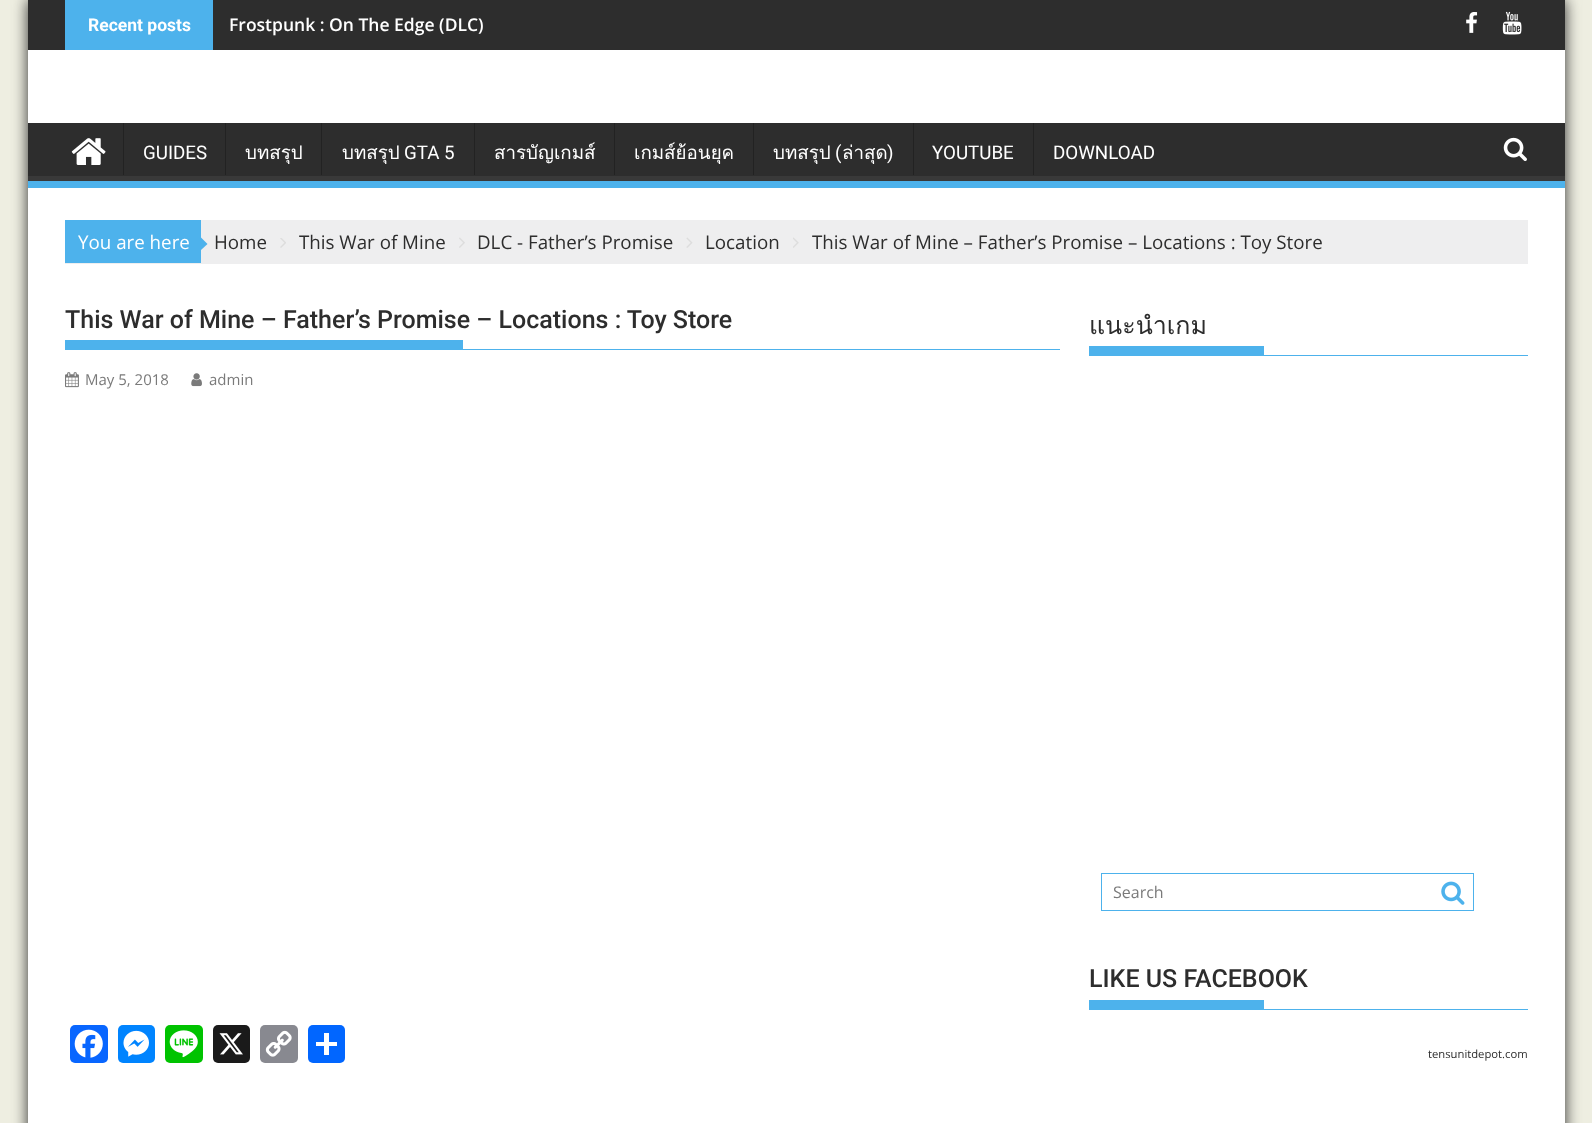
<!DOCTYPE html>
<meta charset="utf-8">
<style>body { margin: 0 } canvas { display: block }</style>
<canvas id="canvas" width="1592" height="1123"></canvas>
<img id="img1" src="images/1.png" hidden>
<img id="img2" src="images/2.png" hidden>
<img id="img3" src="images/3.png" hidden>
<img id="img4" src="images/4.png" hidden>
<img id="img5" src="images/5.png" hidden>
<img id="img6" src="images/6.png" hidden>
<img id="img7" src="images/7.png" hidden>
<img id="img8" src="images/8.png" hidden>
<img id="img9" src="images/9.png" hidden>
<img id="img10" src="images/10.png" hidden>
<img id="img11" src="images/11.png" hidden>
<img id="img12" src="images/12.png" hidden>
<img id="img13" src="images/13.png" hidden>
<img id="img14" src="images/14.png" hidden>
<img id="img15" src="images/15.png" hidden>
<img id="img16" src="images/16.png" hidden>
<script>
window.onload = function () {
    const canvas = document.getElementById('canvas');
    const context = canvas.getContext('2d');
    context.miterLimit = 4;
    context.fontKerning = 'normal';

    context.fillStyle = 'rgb(238, 238, 225)';
    context.fillRect(0, 0, 1592, 1123);
    context.fillStyle = 'rgb(45, 45, 45)';
    context.filter = 'blur(7.5px)';
    context.beginPath();
    context.rect(28, 0, 1537, 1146);
    context.fill();
    context.filter = 'none';
    context.fillStyle = 'rgb(255, 255, 255)';
    context.fillRect(28, 50, 1537, 1073);
    context.fillStyle = 'rgb(45, 45, 45)';
    context.fillRect(28, 0, 1537, 50);
    context.fillStyle = 'rgb(77, 178, 236)';
    context.fillRect(65, 0, 148, 50);
    context.drawImage(document.getElementById('img1'), 1466, 12, 12, 21);
    context.drawImage(document.getElementById('img2'), 1502, 11, 20, 24);
    context.fillStyle = 'rgb(45, 45, 45)';
    context.fillRect(28, 123, 1537, 53);
    context.save();
    context.beginPath();
    context.rect(28, 123, 1537, 58);
    context.clip();
    context.fillStyle = 'rgb(57, 57, 57)';
    context.beginPath();
    context.moveTo(-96, -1);
    context.lineTo(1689, -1);
    context.lineTo(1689, 305);
    context.lineTo(-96, 305);
    context.closePath();
    context.moveTo(26, 115);
    context.lineTo(1564, 115);
    context.bezierCurveTo(1564, 115, 1565, 116, 1565, 116);
    context.lineTo(1565, 175);
    context.bezierCurveTo(1565, 176, 1564, 176, 1564, 176);
    context.lineTo(26, 176);
    context.bezierCurveTo(26, 176, 25, 176, 25, 175);
    context.lineTo(25, 116);
    context.bezierCurveTo(25, 116, 26, 115, 26, 115);
    context.closePath();
    context.fill('evenodd');
    context.restore();
    context.fillStyle = 'rgb(77, 178, 236)';
    context.fillRect(28, 181, 1537, 7);
    context.drawImage(document.getElementById('img3'), 71, 138, 35, 27);
    context.fillStyle = 'rgb(34, 34, 34)';
    context.fillRect(123, 123, 1, 52);
    context.fillRect(225, 123, 1, 52);
    context.fillRect(321, 123, 1, 52);
    context.fillRect(474, 123, 1, 52);
    context.fillRect(614, 123, 1, 52);
    context.fillRect(753, 123, 1, 52);
    context.fillRect(913, 123, 1, 52);
    context.fillRect(1033, 123, 1, 52);
    context.drawImage(document.getElementById('img4'), 1503, 137, 24, 25);
    context.fillStyle = 'rgb(238, 238, 239)';
    context.fillRect(65, 220, 1463, 44);
    context.fillStyle = 'rgb(77, 178, 236)';
    context.fillRect(65, 220, 136, 43);
    context.beginPath();
    context.moveTo(201, 250);
    context.lineTo(201, 237.5);
    context.lineTo(207.5, 244);
    context.closePath();
    context.fill();
    context.drawImage(document.getElementById('img5'), 280, 238, 6, 10);
    context.drawImage(document.getElementById('img6'), 459, 237, 6, 11);
    context.drawImage(document.getElementById('img7'), 686, 237, 7, 11);
    context.drawImage(document.getElementById('img8'), 793, 237, 6, 11);
    context.fillRect(65, 349, 995, 1);
    context.fillRect(65, 340, 398, 9);
    context.drawImage(document.getElementById('img9'), 65, 372, 14, 16);
    context.drawImage(document.getElementById('img10'), 191, 373, 11, 14);
    context.fillStyle = 'rgb(8, 102, 255)';
    context.beginPath();
    context.roundRect(70, 1025, 38, 38, 5);
    context.fill();
    context.drawImage(document.getElementById('img11'), 74, 1029, 29, 29);
    context.fillStyle = 'rgb(0, 132, 255)';
    context.beginPath();
    context.roundRect(118, 1025, 37, 38, 5);
    context.fill();
    context.drawImage(document.getElementById('img12'), 123, 1030, 26, 27);
    context.fillStyle = 'rgb(0, 195, 0)';
    context.beginPath();
    context.roundRect(165, 1025, 38, 38, 5);
    context.fill();
    context.drawImage(document.getElementById('img13'), 169, 1030, 29, 28);
    context.fillStyle = 'rgb(26, 26, 26)';
    context.beginPath();
    context.roundRect(213, 1025, 37, 38, 5);
    context.fill();
    context.drawImage(document.getElementById('img14'), 219, 1033, 24, 22);
    context.fillStyle = 'rgb(136, 137, 144)';
    context.beginPath();
    context.roundRect(260, 1025, 38, 38, 5);
    context.fill();
    context.drawImage(document.getElementById('img15'), 265, 1030, 27, 27);
    context.fillStyle = 'rgb(1, 102, 255)';
    context.beginPath();
    context.roundRect(308, 1025, 37, 38, 5);
    context.fill();
    context.fillStyle = 'rgb(255, 255, 255)';
    context.fillRect(324, 1033, 5, 22);
    context.fillRect(316, 1042, 21, 4);
    context.fillStyle = 'rgb(77, 178, 236)';
    context.fillRect(1089, 355, 439, 1);
    context.fillRect(1089, 346, 175, 9);
    context.strokeStyle = 'rgb(77, 178, 236)';
    context.strokeRect(1101.5, 873.5, 372, 37);
    context.drawImage(document.getElementById('img16'), 1441, 881, 24, 24);
    context.fillRect(1089, 1009, 439, 1);
    context.fillRect(1089, 1000, 175, 9);
    context.font = 'bold 17.5px Roboto';
    context.fillStyle = 'rgb(255, 255, 255)';
    context.fillText('Recent posts', 88, 31);
    context.font = '600 17.5px Open Sans';
    context.fillText('Frostpunk : On The Edge (DLC)', 229, 31);
    context.font = '18.75px Roboto';
    context.fillText('GUIDES', 143, 159);
    context.font = '18.75px Loma';
    context.fillText('บทสรุป', 245, 159);
    context.fillText('บทสรุป', 342, 159);
    context.font = '18.75px Roboto';
    context.fillText('GTA 5', 404, 159);
    context.font = '18.75px Loma';
    context.fillText('สารบัญเกมส์', 494, 159);
    context.fillText('เกมส์ย้อนยุค', 634, 159);
    context.font = '18.75px Roboto';
    context.fillText('(', 835, 159);
    context.font = '18.75px Loma';
    context.fillText('บทสรุป', 773, 159);
    context.fillText('ล่าสุด', 842, 159);
    context.font = '18.75px Roboto';
    context.fillText(')', 887, 159);
    context.fillText('YOUTUBE', 932, 159);
    context.fillText('DOWNLOAD', 1053, 159);
    context.font = '18.75px Open Sans';
    context.fillText('You are here', 78, 249);
    context.fillStyle = 'rgb(45, 45, 45)';
    context.fillText('Home', 214, 249);
    context.fillText('This War of Mine', 299, 249);
    context.fillText('DLC - Father’s Promise', 477, 249);
    context.fillText('Location', 705, 249);
    context.fillText('This War of Mine – Father’s Promise – Locations : Toy Store', 812, 249);
    context.font = '500 25px Roboto';
    context.fillText('This War of Mine – Father’s Promise – Locations : Toy Store', 65, 328);
    context.font = '15px Open Sans';
    context.fillStyle = 'rgb(122, 122, 122)';
    context.fillText('May 5, 2018', 85, 385);
    context.fillText('admin', 209, 385);
    context.font = '25px Loma';
    context.fillStyle = 'rgb(45, 45, 45)';
    context.fillText('แนะนำเกม', 1089, 334);
    context.font = '16px Open Sans';
    context.fillStyle = 'rgb(122, 122, 122)';
    context.fillText('Search', 1113, 898);
    context.font = '500 25px Roboto';
    context.fillStyle = 'rgb(45, 45, 45)';
    context.fillText('LIKE US FACEBOOK', 1089, 987);
    context.font = '11.25px Open Sans';
    context.fillText('tensunitdepot.com', 1428, 1058);
};
</script>
